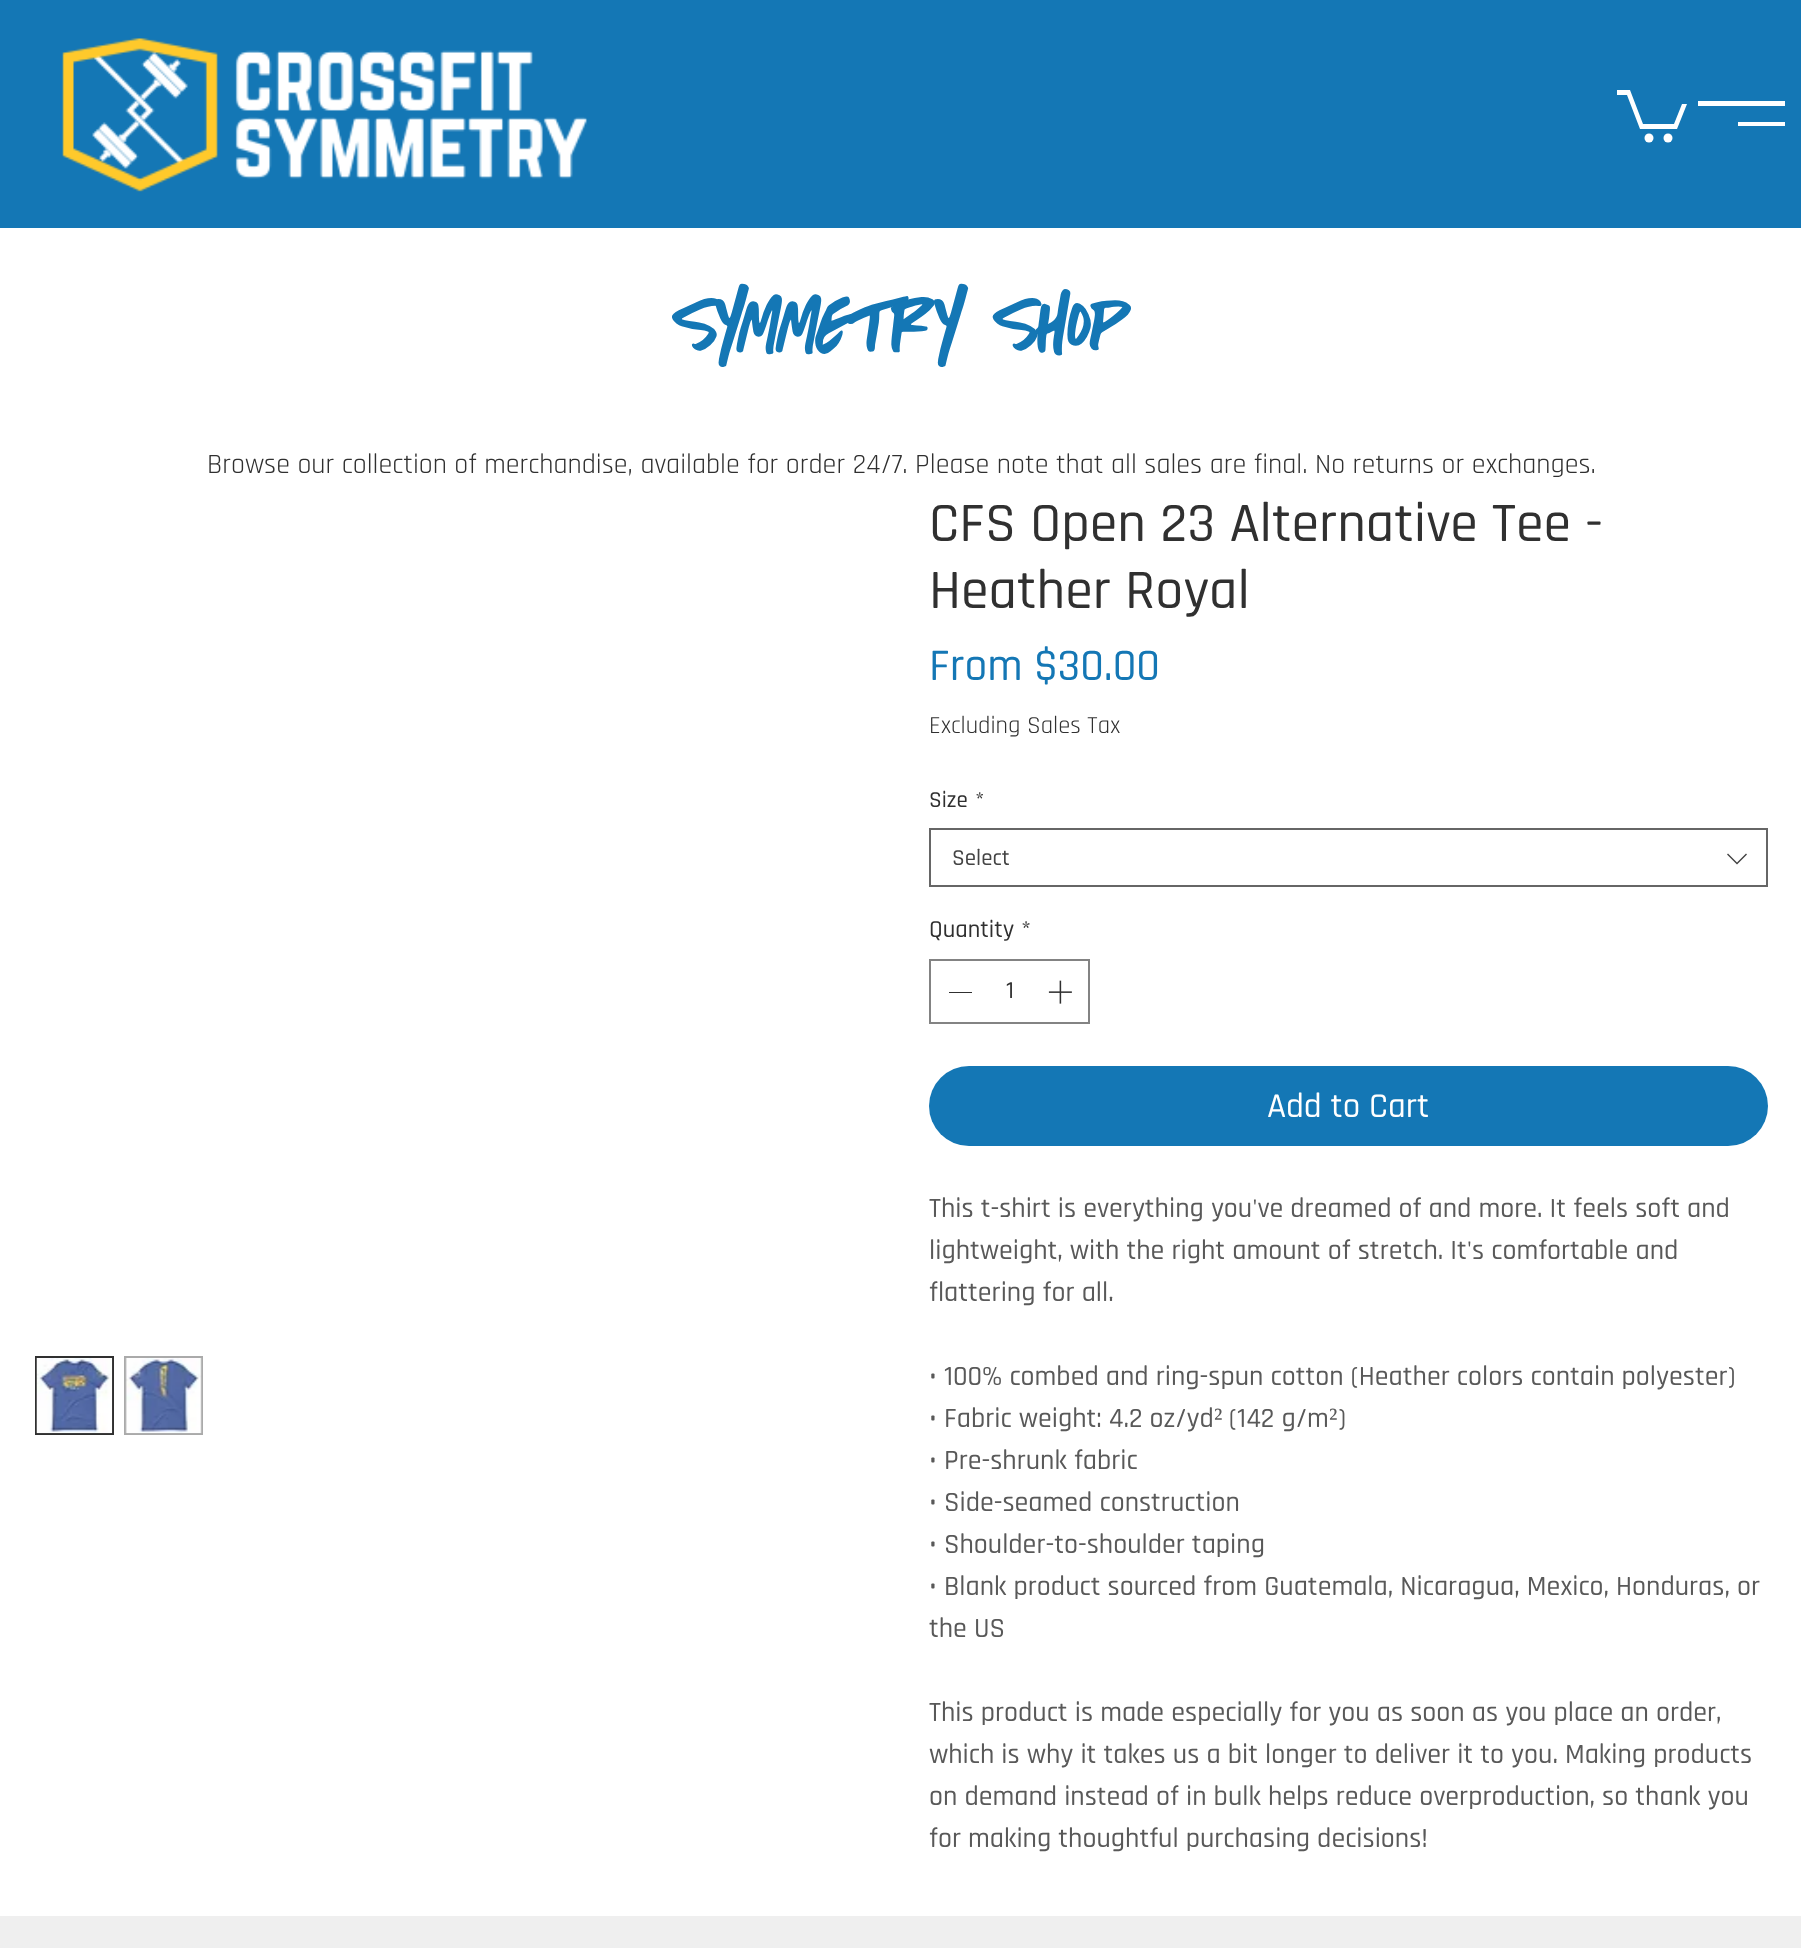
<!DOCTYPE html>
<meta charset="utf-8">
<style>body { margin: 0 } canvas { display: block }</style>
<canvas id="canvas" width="1801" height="1948"></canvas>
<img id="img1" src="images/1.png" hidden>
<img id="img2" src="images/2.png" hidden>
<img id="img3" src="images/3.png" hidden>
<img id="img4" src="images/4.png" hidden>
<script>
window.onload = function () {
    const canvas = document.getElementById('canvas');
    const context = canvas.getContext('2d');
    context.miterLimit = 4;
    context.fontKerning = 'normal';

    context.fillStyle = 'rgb(255, 255, 255)';
    context.fillRect(0, 0, 1801, 1948);
    context.fillStyle = 'rgb(20, 119, 181)';
    context.fillRect(0, 0, 1801, 228);
    context.drawImage(document.getElementById('img1'), 62, 38, 525, 154);
    context.fillStyle = 'rgb(255, 255, 255)';
    context.beginPath();
    context.moveTo(1687, 104);
    context.lineTo(1677, 129);
    context.lineTo(1640, 129);
    context.lineTo(1627, 95);
    context.lineTo(1617, 95);
    context.lineTo(1617, 90);
    context.lineTo(1630, 90);
    context.lineTo(1643, 124);
    context.lineTo(1674, 124);
    context.lineTo(1682, 104);
    context.fill();
    context.beginPath();
    context.arc(1668, 138, 4.5, 0, 2 * Math.PI);
    context.fill();
    context.beginPath();
    context.arc(1649, 138, 4.5, 0, 2 * Math.PI);
    context.fill();
    context.fillRect(1698, 101, 87, 5);
    context.fillRect(1738, 122, 47, 4);
    context.strokeStyle = 'rgb(48, 48, 48)';
    context.lineWidth = 2;
    context.strokeRect(36, 1357, 77, 77);
    context.drawImage(document.getElementById('img2'), 36, 1358, 77, 76);
    context.fillStyle = 'rgb(170, 170, 170)';
    context.fillRect(124, 1356, 79, 79);
    context.drawImage(document.getElementById('img3'), 125, 1358, 77, 76);
    context.strokeStyle = 'rgb(102, 102, 102)';
    context.strokeRect(930, 829, 837, 57);
    context.fillStyle = 'rgb(68, 68, 68)';
    context.beginPath();
    context.moveTo(1746, 853.5);
    context.lineTo(1747, 854.5);
    context.lineTo(1737, 864.5);
    context.lineTo(1727, 854.5);
    context.lineTo(1728, 853.5);
    context.lineTo(1737, 862.5);
    context.closePath();
    context.fill('evenodd');
    context.strokeStyle = 'rgb(131, 131, 131)';
    context.strokeRect(930, 960, 159, 63);
    context.fillStyle = 'rgb(48, 48, 48)';
    context.fillRect(949, 992, 23, 1);
    context.drawImage(document.getElementById('img4'), 1048, 980, 24, 24);
    context.fillStyle = 'rgb(20, 119, 181)';
    context.beginPath();
    context.roundRect(929, 1066, 839, 80, 40);
    context.fill();
    context.fillStyle = 'rgb(239, 239, 239)';
    context.fillRect(0, 1916, 1801, 32);
    context.font = '103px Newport';
    context.fillStyle = 'rgb(20, 119, 181)';
    context.fillText('Symmetry Shop', 675, 361);
    context.font = '28px Rajdhani';
    context.fillStyle = 'rgb(48, 48, 48)';
    context.fillText('Browse our collection of merchandise, available for order 24/7. Please note that all sales are final. No returns or exchanges.', 207, 473);
    context.font = '500 56px Rajdhani';
    context.fillText('CFS Open 23 Alternative Tee -', 929, 541);
    context.fillText('Heather Royal', 929, 608);
    context.font = '500 45.5px Rajdhani';
    context.fillStyle = 'rgb(20, 119, 181)';
    context.fillText('From $30.00', 929, 680);
    context.font = '24.5px Rajdhani';
    context.fillStyle = 'rgb(48, 48, 48)';
    context.fillText('Excluding Sales Tax', 929, 733);
    context.font = '500 23px Rajdhani';
    context.fillText('Size', 929, 807);
    context.fillText('*', 975, 807);
    context.fillStyle = 'rgb(68, 68, 68)';
    context.fillText('Select', 952, 865);
    context.font = '500 24.5px Rajdhani';
    context.fillStyle = 'rgb(48, 48, 48)';
    context.fillText('Quantity', 929, 937);
    context.fillText('*', 1021, 937);
    context.fillText('1', 1006, 998);
    context.font = '500 35px Rajdhani';
    context.fillStyle = 'rgb(255, 255, 255)';
    context.fillText('Add to Cart', 1267, 1117);
    context.font = '500 28px Rajdhani';
    context.fillStyle = 'rgb(89, 89, 89)';
    context.fillText('This t-shirt is everything you\'ve dreamed of and more. It feels soft and', 929, 1217);
    context.fillText('lightweight, with the right amount of stretch. It\'s comfortable and', 929, 1259);
    context.fillText('flattering for all.', 929, 1301);
    context.fillText('• 100% combed and ring-spun cotton (Heather colors contain polyester)', 929, 1385);
    context.fillText('• Fabric weight: 4.2 oz/yd', 929, 1427);
    context.font = '28px Liberation Serif';
    context.fillText('²', 1214, 1427);
    context.font = '500 28px Rajdhani';
    context.fillText('(142 g/m', 1229, 1427);
    context.font = '28px Liberation Serif';
    context.fillText('²', 1329, 1427);
    context.font = '500 28px Rajdhani';
    context.fillText(')', 1338, 1427);
    context.fillText('• Pre-shrunk fabric', 929, 1469);
    context.fillText('• Side-seamed construction', 929, 1511);
    context.fillText('• Shoulder-to-shoulder taping', 929, 1553);
    context.fillText('• Blank product sourced from Guatemala, Nicaragua, Mexico, Honduras, or', 929, 1595);
    context.fillText('the US', 929, 1637);
    context.fillText('This product is made especially for you as soon as you place an order,', 929, 1721);
    context.fillText('which is why it takes us a bit longer to deliver it to you. Making products', 929, 1763);
    context.fillText('on demand instead of in bulk helps reduce overproduction, so thank you', 929, 1805);
    context.fillText('for making thoughtful purchasing decisions!', 929, 1847);
};
</script>
